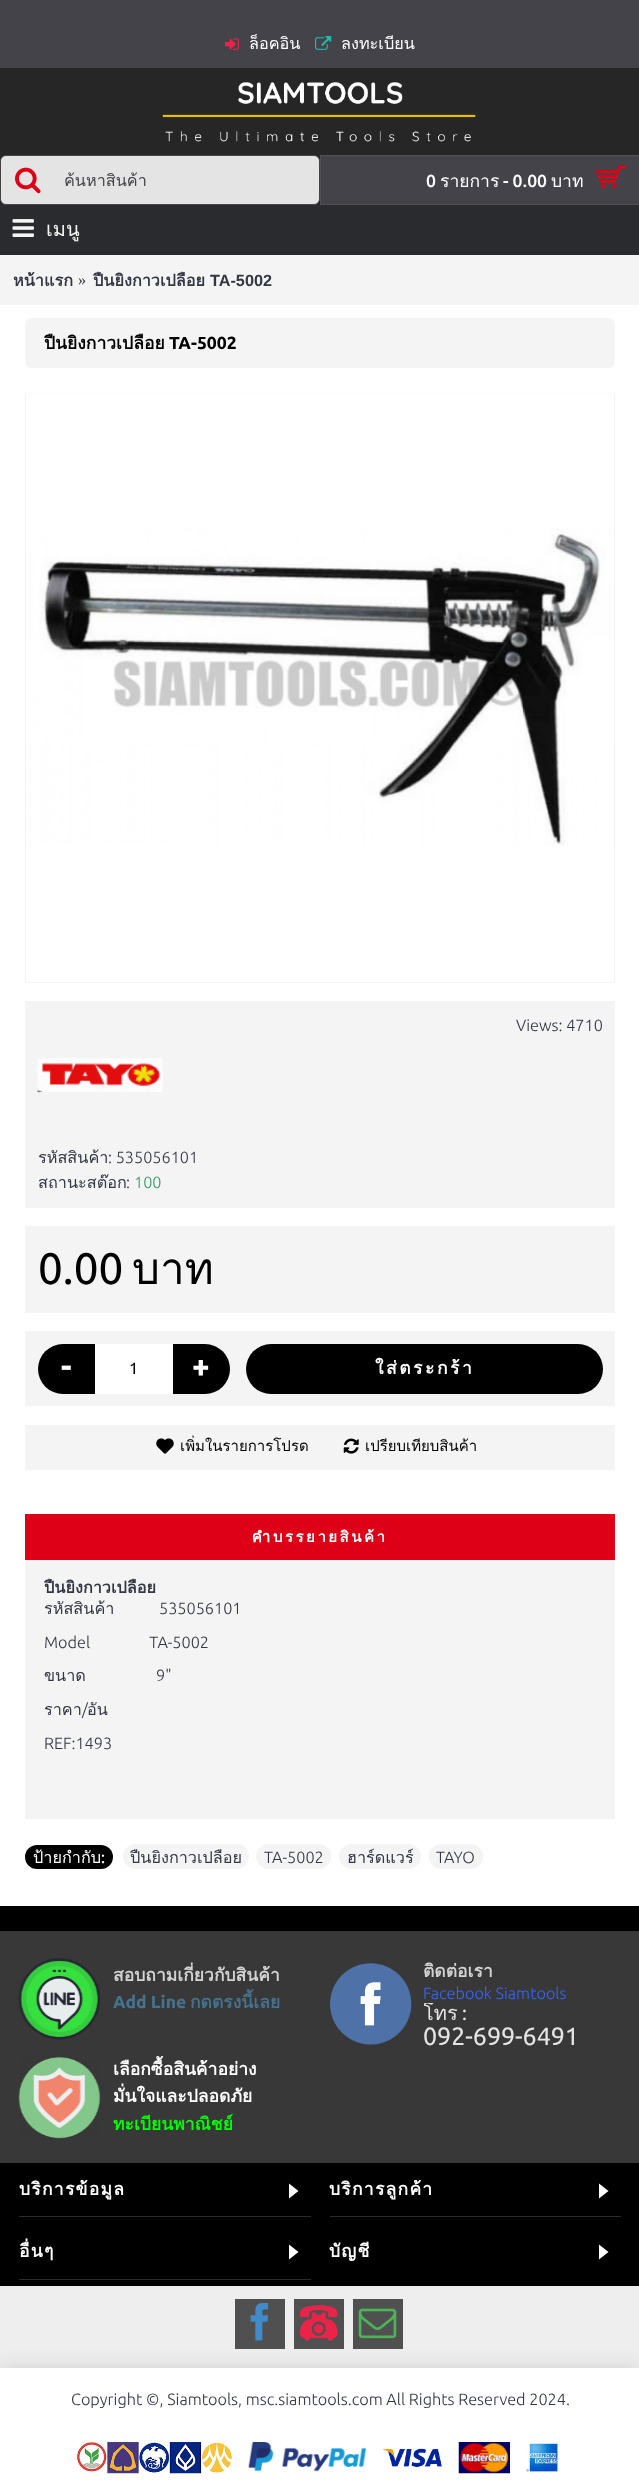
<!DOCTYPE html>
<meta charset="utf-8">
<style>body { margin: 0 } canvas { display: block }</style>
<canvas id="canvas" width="639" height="2488"></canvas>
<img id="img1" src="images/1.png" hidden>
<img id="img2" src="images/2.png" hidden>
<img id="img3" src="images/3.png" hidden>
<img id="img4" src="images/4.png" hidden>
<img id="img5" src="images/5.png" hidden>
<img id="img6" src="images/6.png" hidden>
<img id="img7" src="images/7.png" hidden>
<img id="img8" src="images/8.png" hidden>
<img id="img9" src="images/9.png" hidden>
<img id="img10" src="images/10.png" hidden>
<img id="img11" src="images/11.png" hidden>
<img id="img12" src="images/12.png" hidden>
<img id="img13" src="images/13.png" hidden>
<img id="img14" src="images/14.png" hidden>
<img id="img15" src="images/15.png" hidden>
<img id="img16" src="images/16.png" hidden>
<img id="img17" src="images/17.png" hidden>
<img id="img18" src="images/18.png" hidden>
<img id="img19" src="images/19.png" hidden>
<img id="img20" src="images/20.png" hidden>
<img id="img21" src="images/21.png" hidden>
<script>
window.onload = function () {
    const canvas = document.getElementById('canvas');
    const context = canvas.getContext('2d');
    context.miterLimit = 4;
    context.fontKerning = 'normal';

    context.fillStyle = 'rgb(255, 255, 255)';
    context.fillRect(0, 0, 639, 2488);
    context.fillStyle = 'rgb(38, 38, 38)';
    context.fillRect(0, 68, 639, 137);
    context.fillStyle = 'rgb(68, 67, 73)';
    context.fillRect(0, 0, 639, 68);
    context.drawImage(document.getElementById('img1'), 225, 38, 14, 12);
    context.drawImage(document.getElementById('img2'), 315, 36, 17, 14);
    context.drawImage(document.getElementById('img3'), 162, 82, 314, 60);
    context.fillStyle = 'rgb(228, 228, 228)';
    context.beginPath();
    context.roundRect(0.5, 155.5, 319, 49, 5.5);
    context.fill();
    context.strokeStyle = 'rgb(68, 67, 73)';
    context.stroke();
    context.drawImage(document.getElementById('img4'), 15, 167, 26, 27);
    context.fillStyle = 'rgb(68, 67, 73)';
    context.fillRect(321, 156, 318, 48);
    context.fillStyle = 'rgb(80, 80, 80)';
    context.fillRect(320, 155, 319, 1);
    context.fillRect(320, 204, 319, 1);
    context.fillRect(320, 155, 1, 50);
    context.drawImage(document.getElementById('img5'), 595, 165, 32, 24);
    context.fillStyle = 'rgb(42, 43, 46)';
    context.fillRect(0, 205, 639, 50);
    context.drawImage(document.getElementById('img6'), 12, 219, 22, 18);
    context.fillStyle = 'rgb(244, 244, 244)';
    context.fillRect(0, 255, 639, 50);
    context.beginPath();
    context.roundRect(25, 318, 590, 50, 6);
    context.fill();
    context.strokeStyle = 'rgb(244, 244, 244)';
    context.strokeRect(25.5, 393.5, 589, 589);
    context.drawImage(document.getElementById('img7'), 26, 393, 588, 453);
    context.fillRect(25, 1001, 590, 207);
    context.drawImage(document.getElementById('img8'), 37, 1058, 126, 35);
    context.fillRect(25, 1226, 590, 87);
    context.fillRect(25, 1331, 590, 75);
    context.fillStyle = 'rgb(0, 0, 0)';
    context.beginPath();
    context.roundRect(38, 1344, 57, 50, [25, 0, 0, 25]);
    context.fill();
    context.fillStyle = 'rgb(255, 255, 255)';
    context.fillRect(95, 1344, 78, 50);
    context.fillStyle = 'rgb(0, 0, 0)';
    context.beginPath();
    context.roundRect(173, 1344, 57, 50, [0, 25, 25, 0]);
    context.fill();
    context.beginPath();
    context.roundRect(246, 1344, 357, 50, 25);
    context.fill();
    context.fillStyle = 'rgb(244, 244, 244)';
    context.fillRect(25, 1425, 590, 45);
    context.drawImage(document.getElementById('img9'), 156, 1438, 18, 16);
    context.drawImage(document.getElementById('img10'), 343, 1438, 16, 16);
    context.fillStyle = 'rgb(221, 0, 23)';
    context.fillRect(25, 1514, 590, 46);
    context.fillStyle = 'rgb(244, 244, 244)';
    context.fillRect(25, 1560, 590, 259);
    context.fillStyle = 'rgb(0, 0, 0)';
    context.beginPath();
    context.roundRect(25, 1845, 88, 24, 12);
    context.fill();
    context.fillStyle = 'rgb(244, 244, 244)';
    context.beginPath();
    context.roundRect(123, 1844, 126, 25, 12.5);
    context.fill();
    context.beginPath();
    context.roundRect(256, 1844, 75, 25, 12.5);
    context.fill();
    context.beginPath();
    context.roundRect(339, 1844, 82, 25, 12.5);
    context.fill();
    context.beginPath();
    context.roundRect(429, 1844, 54, 25, 12.5);
    context.fill();
    context.fillStyle = 'rgb(0, 0, 0)';
    context.fillRect(0, 1906, 639, 380);
    context.fillStyle = 'rgb(56, 56, 56)';
    context.fillRect(0, 1931, 639, 232);
    context.drawImage(document.getElementById('img11'), 18, 1958, 83, 82);
    context.drawImage(document.getElementById('img12'), 330, 1963, 82, 82);
    context.drawImage(document.getElementById('img13'), 18, 2057, 83, 82);
    context.fillStyle = 'rgb(42, 43, 46)';
    context.fillRect(19, 2216, 292, 1);
    context.fillStyle = 'rgb(255, 255, 255)';
    context.beginPath();
    context.moveTo(289, 2183.5);
    context.lineTo(289, 2198.5);
    context.lineTo(298.5, 2191);
    context.closePath();
    context.fill();
    context.fillStyle = 'rgb(42, 43, 46)';
    context.fillRect(330, 2216, 291, 1);
    context.fillStyle = 'rgb(255, 255, 255)';
    context.beginPath();
    context.moveTo(599, 2183.5);
    context.lineTo(599, 2198.5);
    context.lineTo(608.5, 2191);
    context.closePath();
    context.fill();
    context.fillStyle = 'rgb(42, 43, 46)';
    context.fillRect(19, 2279, 292, 1);
    context.fillStyle = 'rgb(255, 255, 255)';
    context.beginPath();
    context.moveTo(289, 2244.5);
    context.lineTo(289, 2259.5);
    context.lineTo(298.5, 2252);
    context.closePath();
    context.fill();
    context.beginPath();
    context.moveTo(599, 2244.5);
    context.lineTo(599, 2259.5);
    context.lineTo(608.5, 2252);
    context.closePath();
    context.fill();
    context.fillStyle = 'rgb(238, 238, 238)';
    context.fillRect(0, 2286, 639, 82);
    context.fillStyle = 'rgba(0, 0, 0, 0.2)';
    context.filter = 'blur(12.5px)';
    context.beginPath();
    context.rect(0, 2374, 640, 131);
    context.fill();
    context.filter = 'none';
    context.fillStyle = 'rgb(80, 80, 80)';
    context.fillRect(235, 2299, 50, 50);
    context.drawImage(document.getElementById('img14'), 250, 2303, 19, 38);
    context.fillRect(294, 2299, 50, 50);
    context.drawImage(document.getElementById('img15'), 300, 2305, 38, 36);
    context.fillRect(353, 2299, 50, 50);
    context.drawImage(document.getElementById('img16'), 358, 2308, 39, 31);
    context.fillStyle = 'rgb(255, 255, 255)';
    context.fillRect(0, 2368, 639, 120);
    context.drawImage(document.getElementById('img17'), 76, 2442, 157, 32);
    context.drawImage(document.getElementById('img18'), 248, 2442, 119, 30);
    context.drawImage(document.getElementById('img19'), 383, 2448, 59, 19);
    context.drawImage(document.getElementById('img20'), 458, 2442, 52, 32);
    context.drawImage(document.getElementById('img21'), 526, 2443, 32, 29);
    context.font = '16.25px Loma';
    context.fillText('ล็อคอิน', 249, 49);
    context.fillText('ลงทะเบียน', 341, 49);
    context.save();
    context.beginPath();
    context.rect(64, 168, 255, 26);
    context.clip();
    context.fillStyle = 'rgb(68, 67, 73)';
    context.fillText('ค้นหาสินค้า', 64, 186);
    context.restore();
    context.font = '500 17.5px Ubuntu';
    context.fillText('0', 426, 187);
    context.font = '17.5px Loma';
    context.fillText('รายการ', 440, 187);
    context.font = '500 17.5px Ubuntu';
    context.fillText('- 0.00', 503, 187);
    context.font = '17.5px Loma';
    context.fillText('บาท', 551, 187);
    context.font = '20px Loma';
    context.fillStyle = 'rgb(244, 244, 244)';
    context.fillText('เมนู', 46, 236);
    context.font = 'bold 16.25px Loma';
    context.fillStyle = 'rgb(51, 55, 69)';
    context.fillText('หน้าแรก', 13, 286);
    context.font = '16.25px Liberation Serif';
    context.fillText('»', 78, 285);
    context.font = 'bold 16.25px Loma';
    context.fillText('ปืนยิงกาวเปลือย', 93, 286);
    context.font = 'bold 16.25px Liberation Sans';
    context.fillText('TA-5002', 210, 286);
    context.font = 'bold 17.5px Loma';
    context.fillStyle = 'rgb(0, 0, 0)';
    context.fillText('ปืนยิงกาวเปลือย', 44, 349);
    context.font = 'bold 17.5px Ubuntu';
    context.fillText('TA-5002', 169, 349);
    context.font = '300 16.25px Ubuntu';
    context.fillStyle = 'rgb(51, 55, 69)';
    context.fillText('Views: 4710', 516, 1031);
    context.font = '16.25px Loma';
    context.fillText('รหัสสินค้า', 38, 1163);
    context.font = '300 16.25px Ubuntu';
    context.fillText(': 535056101', 108, 1163);
    context.font = '16.25px Loma';
    context.fillText('สถานะสต๊อก', 38, 1188);
    context.font = '300 16.25px Ubuntu';
    context.fillText(':', 126, 1188);
    context.fillStyle = 'rgb(51, 153, 101)';
    context.fillText('100', 134, 1188);
    context.font = '44px Ubuntu';
    context.fillStyle = 'rgb(0, 0, 0)';
    context.fillText('0.00', 38, 1284);
    context.font = '44px Loma';
    context.fillText('บาท', 132, 1284);
    context.font = 'bold 31px Ubuntu';
    context.fillStyle = 'rgb(255, 255, 255)';
    context.fillText('-', 61, 1377);
    context.font = '16.25px Ubuntu';
    context.fillStyle = 'rgb(0, 0, 0)';
    context.fillText('1', 129, 1374);
    context.font = 'bold 31px Ubuntu';
    context.fillStyle = 'rgb(255, 255, 255)';
    context.fillText('+', 192, 1377);
    context.letterSpacing = '2.5px';
    context.font = 'bold 17.5px Loma';
    context.fillText('ใส่ตระกร้า', 375, 1374);
    context.letterSpacing = '0px';
    context.font = '15px Loma';
    context.fillStyle = 'rgb(0, 0, 0)';
    context.fillText('เพิ่มในรายการโปรด', 180, 1451);
    context.fillText('เปรียบเทียบสินค้า', 365, 1451);
    context.letterSpacing = '2.5px';
    context.font = 'bold 15px Loma';
    context.fillStyle = 'rgb(255, 255, 255)';
    context.fillText('คำบรรยายสินค้า', 252, 1542);
    context.letterSpacing = '0px';
    context.font = 'bold 16.25px Loma';
    context.fillStyle = 'rgb(51, 55, 69)';
    context.fillText('ปืนยิงกาวเปลือย', 44, 1593);
    context.font = '16.25px Loma';
    context.fillText('รหัสสินค้า', 44, 1614);
    context.font = '300 16.25px Ubuntu';
    context.fillText('535056101', 159, 1614);
    context.fillText('Model                TA-5002', 44, 1648);
    context.font = '16.25px Loma';
    context.fillText('ขนาด', 44, 1681);
    context.font = '300 16.25px Ubuntu';
    context.fillText('9"', 156, 1681);
    context.fillText('/', 82, 1715);
    context.font = '16.25px Loma';
    context.fillText('ราคา', 44, 1715);
    context.fillText('อัน', 87, 1715);
    context.font = '300 16.25px Ubuntu';
    context.fillText('REF:1493', 44, 1749);
    context.font = '16.25px Loma';
    context.fillStyle = 'rgb(255, 255, 255)';
    context.fillText('ป้ายกำกับ', 33, 1863);
    context.font = '16.25px Ubuntu';
    context.fillText(':', 101, 1863);
    context.font = '16.25px Loma';
    context.fillStyle = 'rgb(51, 55, 69)';
    context.fillText('ปืนยิงกาวเปลือย', 130, 1863);
    context.font = '300 16.25px Ubuntu';
    context.fillText('TA-5002', 264, 1863);
    context.font = '16.25px Loma';
    context.fillText('ฮาร์ดแวร์', 347, 1863);
    context.font = '300 16.25px Ubuntu';
    context.fillText('TAYO', 436, 1863);
    context.font = 'bold 17.5px Loma';
    context.fillStyle = 'rgb(211, 211, 211)';
    context.fillText('สอบถามเกี่ยวกับสินค้า', 113, 1981);
    context.font = 'bold 17.5px Ubuntu';
    context.fillStyle = 'rgb(69, 115, 143)';
    context.fillText('Add Line', 113, 2008);
    context.font = 'bold 17.5px Loma';
    context.fillText('กดตรงนี้เลย', 190, 2008);
    context.fillStyle = 'rgb(211, 211, 211)';
    context.fillText('ติดต่อเรา', 423, 1977);
    context.font = '300 16.25px Ubuntu';
    context.fillStyle = 'rgb(51, 102, 255)';
    context.fillText('Facebook Siamtools', 423, 1999);
    context.save();
    context.beginPath();
    context.rect(424, 2003, 155, 21);
    context.clip();
    context.font = '20px Loma';
    context.fillStyle = 'rgb(228, 228, 228)';
    context.fillText('โทร', 423, 2020);
    context.restore();
    context.font = '20px Ubuntu';
    context.fillStyle = 'rgb(228, 228, 228)';
    context.fillText(':', 462, 2020);
    context.font = '25px Ubuntu';
    context.fillText('092-699-6491', 423, 2045);
    context.font = 'bold 17.5px Loma';
    context.fillStyle = 'rgb(255, 255, 255)';
    context.fillText('เลือกซื้อสินค้าอย่าง', 113, 2075);
    context.fillText('มั่นใจและปลอดภัย', 113, 2102);
    context.fillStyle = 'rgb(0, 255, 0)';
    context.fillText('ทะเบียนพาณิชย์', 113, 2130);
    context.letterSpacing = '1.25px';
    context.fillStyle = 'rgb(255, 255, 255)';
    context.fillText('บริการข้อมูล', 19, 2195);
    context.fillText('บริการลูกค้า', 329, 2195);
    context.fillText('อื่นๆ', 19, 2257);
    context.fillText('บัญชี', 329, 2257);
    context.letterSpacing = '0px';
    context.font = '300 16.25px Ubuntu';
    context.fillStyle = 'rgb(51, 55, 69)';
    context.fillText('Copyright ©, Siamtools, msc.siamtools.com All Rights Reserved 2024.', 71, 2405);
};
</script>
